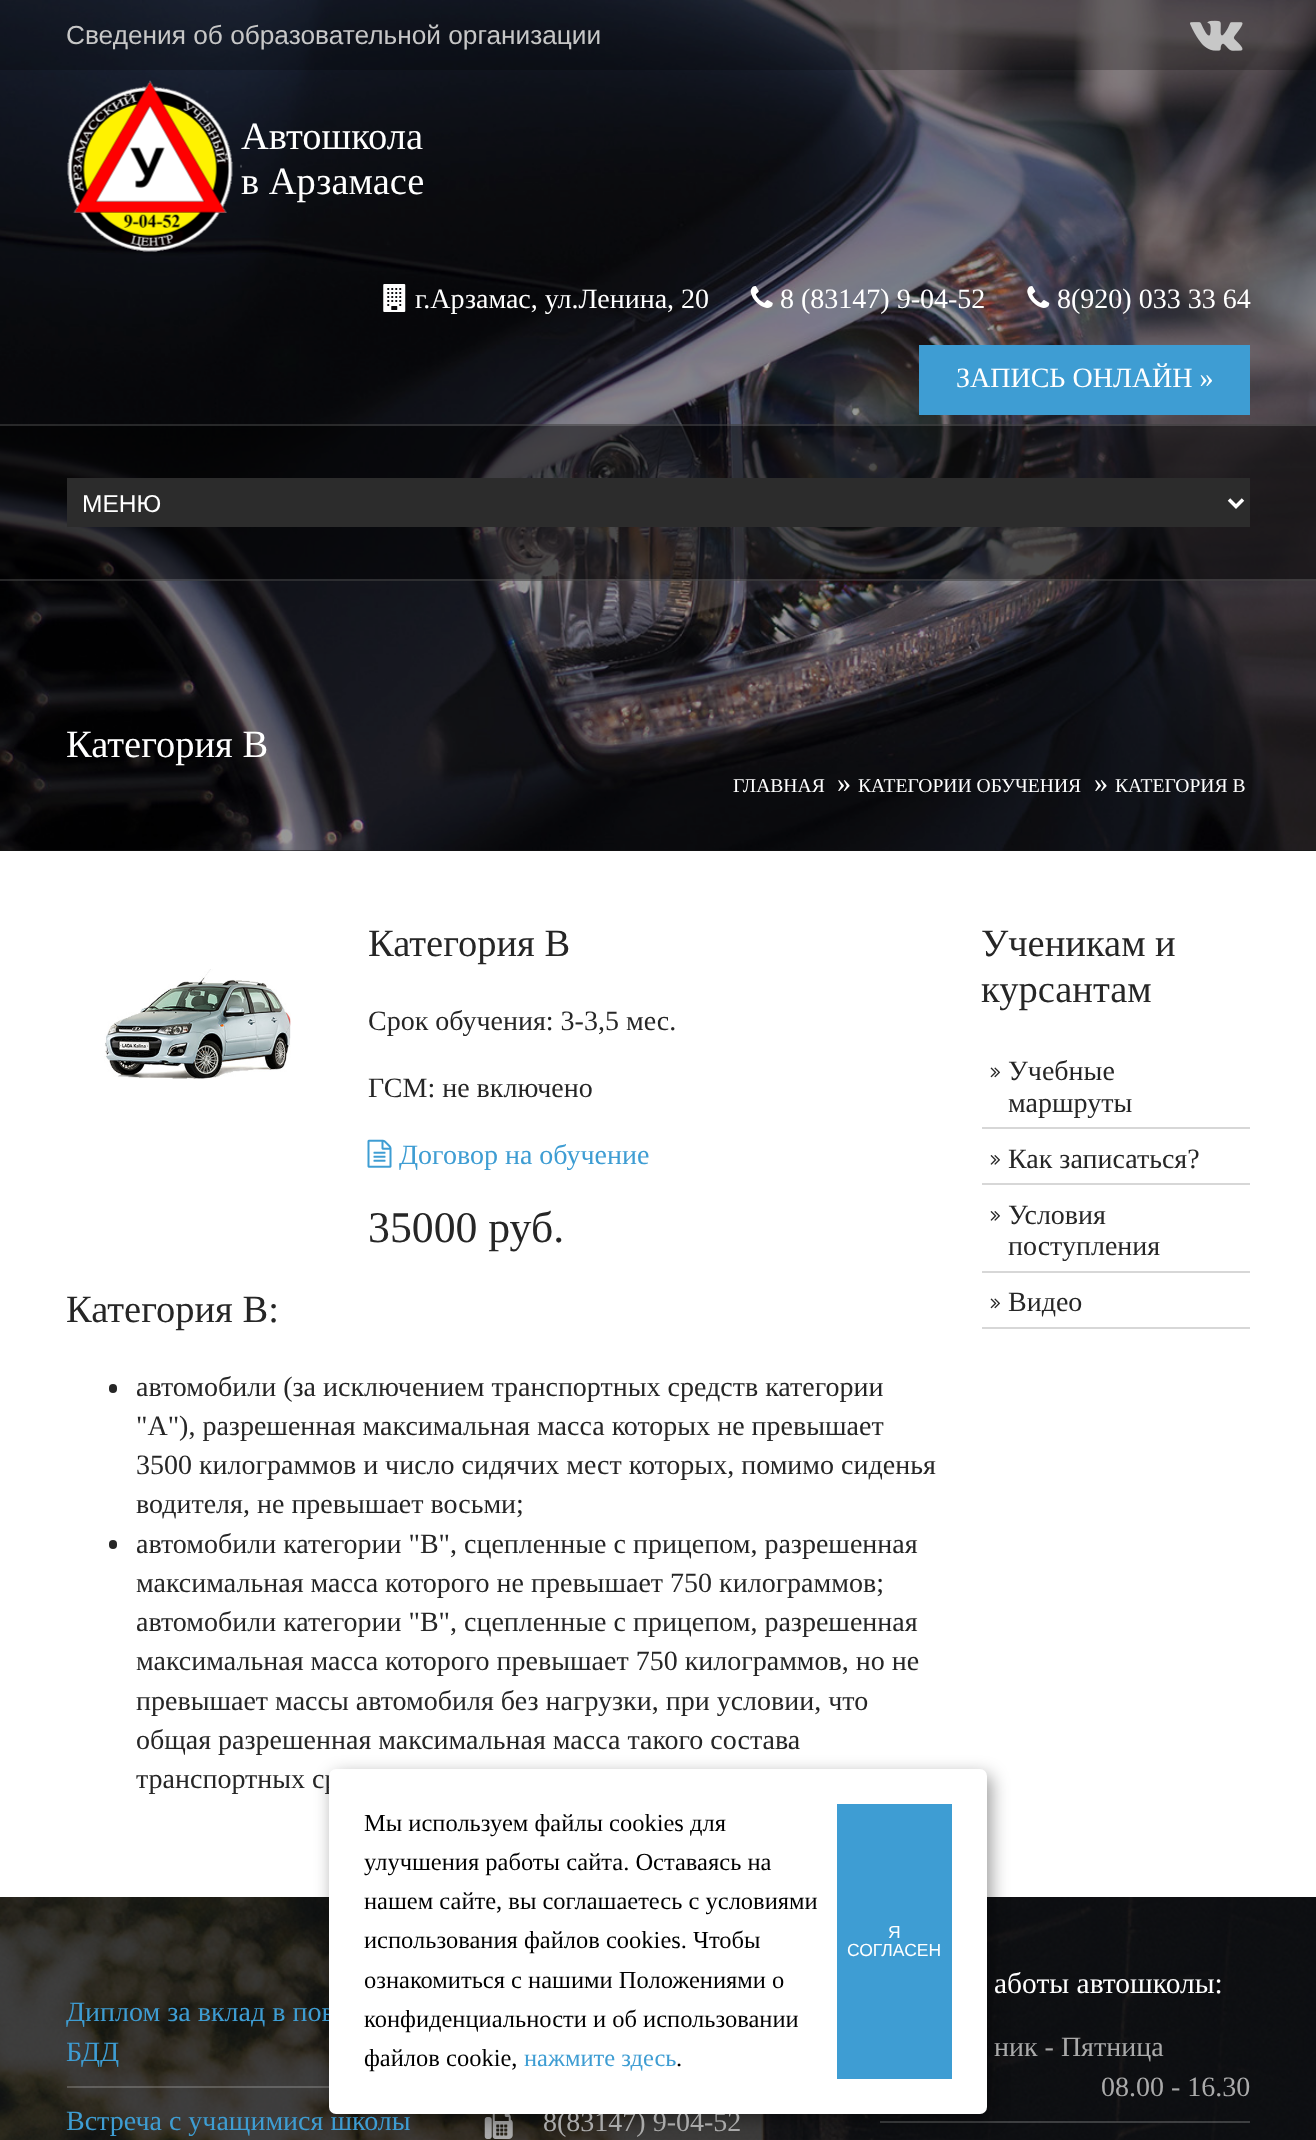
<!DOCTYPE html>
<meta charset="utf-8">
<style>body { margin: 0 } canvas { display: block }</style>
<canvas id="canvas" width="1316" height="2140"></canvas>
<img id="img1" src="images/1.png" hidden>
<img id="img2" src="images/2.png" hidden>
<img id="img3" src="images/3.png" hidden>
<img id="img4" src="images/4.png" hidden>
<img id="img5" src="images/5.png" hidden>
<img id="img6" src="images/6.png" hidden>
<img id="img7" src="images/7.png" hidden>
<img id="img8" src="images/8.png" hidden>
<img id="img9" src="images/9.png" hidden>
<img id="img10" src="images/10.png" hidden>
<img id="img11" src="images/11.png" hidden>
<img id="img12" src="images/12.png" hidden>
<script>
window.onload = function () {
    const canvas = document.getElementById('canvas');
    const context = canvas.getContext('2d');
    context.miterLimit = 4;
    context.fontKerning = 'normal';

    context.fillStyle = 'rgb(22, 22, 22)';
    context.fillRect(0, 0, 1316, 2140);
    context.drawImage(document.getElementById('img1'), 0, 0, 1316, 851);
    context.fillStyle = 'rgba(0, 0, 0, 0.25)';
    context.fillRect(0, 0, 1316, 70);
    context.drawImage(document.getElementById('img2'), 1190, 20, 53, 31);
    context.drawImage(document.getElementById('img3'), 67, 80, 175, 172);
    context.drawImage(document.getElementById('img4'), 383, 284, 23, 28);
    context.drawImage(document.getElementById('img5'), 750, 286, 23, 22);
    context.drawImage(document.getElementById('img6'), 1027, 286, 23, 22);
    context.fillStyle = 'rgb(62, 157, 211)';
    context.fillRect(919, 345, 331, 70);
    context.fillStyle = 'rgba(0, 0, 0, 0.5)';
    context.fillRect(0, 424, 1316, 157);
    context.fillStyle = 'rgba(255, 255, 255, 0.15)';
    context.fillRect(0, 424, 1316, 2);
    context.fillRect(0, 579, 1316, 2);
    context.fillStyle = 'rgb(44, 44, 44)';
    context.fillRect(67, 478, 1183, 49);
    context.beginPath();
    context.moveTo(1229, 499.5);
    context.lineTo(1236, 506.5);
    context.lineTo(1243, 499.5);
    context.strokeStyle = 'rgb(255, 255, 255)';
    context.lineWidth = 3.5;
    context.stroke();
    context.fillStyle = 'rgb(255, 255, 255)';
    context.fillRect(0, 851, 1316, 1046);
    context.drawImage(document.getElementById('img7'), 104, 969, 187, 110);
    context.drawImage(document.getElementById('img8'), 367, 1139, 25, 29);
    context.fillStyle = 'rgb(38, 38, 38)';
    context.beginPath();
    context.roundRect(109, 1384, 8, 9, 4);
    context.fill();
    context.beginPath();
    context.roundRect(109, 1540, 8, 9, 4);
    context.fill();
    context.fillStyle = 'rgb(215, 215, 215)';
    context.fillRect(982, 1127, 268, 2);
    context.drawImage(document.getElementById('img9'), 990, 1067, 10, 11);
    context.fillRect(982, 1183, 268, 2);
    context.drawImage(document.getElementById('img10'), 990, 1155, 10, 10);
    context.fillRect(982, 1271, 268, 2);
    context.drawImage(document.getElementById('img10'), 990, 1211, 10, 10);
    context.fillRect(982, 1327, 268, 2);
    context.drawImage(document.getElementById('img9'), 990, 1298, 10, 11);
    context.drawImage(document.getElementById('img11'), 0, 1897, 1316, 243);
    context.fillStyle = 'rgba(255, 255, 255, 0.2)';
    context.fillRect(67, 2086, 262, 2);
    context.drawImage(document.getElementById('img12'), 484, 2114, 29, 25);
    context.fillRect(880, 2121, 370, 2);
    context.fillStyle = 'rgba(0, 0, 0, 0.4)';
    context.filter = 'blur(9px)';
    context.beginPath();
    context.roundRect(333, 1775, 658, 344, 7);
    context.fill();
    context.filter = 'none';
    context.font = '26.25px Liberation Sans';
    context.fillStyle = 'rgb(199, 199, 199)';
    context.fillText('Сведения об образовательной организации', 66, 44);
    context.font = '38.5px Liberation Serif';
    context.fillStyle = 'rgb(255, 255, 255)';
    context.fillText('Автошкола', 241, 149);
    context.fillText('в Арзамасе', 241, 194);
    context.font = '28px Liberation Serif';
    context.fillText('г.Арзамас, ул.Ленина, 20', 415, 308);
    context.fillText('8 (83147) 9-04-52', 780, 308);
    context.fillText('8(920) 033 33 64', 1057, 308);
    context.fillText('ЗАПИСЬ ОНЛАЙН »', 956, 387);
    context.font = '24.5px Liberation Sans';
    context.fillText('МЕНЮ', 82, 512);
    context.font = '38.5px Liberation Serif';
    context.fillText('Категория B', 66, 757);
    context.font = '19.6px Liberation Serif';
    context.fillText('ГЛАВНАЯ', 733, 792);
    context.font = '28px Liberation Serif';
    context.fillText('»', 837, 792);
    context.font = '19.6px Liberation Serif';
    context.fillText('КАТЕГОРИИ ОБУЧЕНИЯ', 858, 792);
    context.font = '28px Liberation Serif';
    context.fillText('»', 1094, 792);
    context.font = '19.6px Liberation Serif';
    context.fillText('КАТЕГОРИЯ B', 1115, 792);
    context.font = '38.5px Liberation Serif';
    context.fillStyle = 'rgb(38, 38, 38)';
    context.fillText('Категория B', 368, 956);
    context.font = '28px Liberation Serif';
    context.fillText('Срок обучения: 3-3,5 мес.', 368, 1030);
    context.fillText('ГСМ: не включено', 368, 1097);
    context.fillStyle = 'rgb(62, 157, 211)';
    context.fillText('Договор на обучение', 399, 1164);
    context.font = '43.75px Liberation Serif';
    context.fillStyle = 'rgb(38, 38, 38)';
    context.fillText('35000 руб.', 368, 1242);
    context.font = '38.5px Liberation Serif';
    context.fillText('Категория В:', 66, 1322);
    context.font = '28px Liberation Serif';
    context.fillText('автомобили (за исключением транспортных средств категории', 136, 1396);
    context.fillText('"А"), разрешенная максимальная масса которых не превышает', 136, 1435);
    context.fillText('3500 килограммов и число сидячих мест которых, помимо сиденья', 136, 1474);
    context.fillText('водителя, не превышает восьми;', 136, 1513);
    context.fillText('автомобили категории "В", сцепленные с прицепом, разрешенная', 136, 1553);
    context.fillText('максимальная масса которого не превышает 750 килограммов;', 136, 1592);
    context.fillText('автомобили категории "В", сцепленные с прицепом, разрешенная', 136, 1631);
    context.fillText('максимальная масса которого превышает 750 килограммов, но не', 136, 1670);
    context.fillText('превышает массы автомобиля без нагрузки, при условии, что', 136, 1710);
    context.fillText('общая разрешенная максимальная масса такого состава', 136, 1749);
    context.fillText('транспортных ср', 136, 1788);
    context.font = '38.5px Liberation Serif';
    context.fillText('Ученикам и', 981, 956);
    context.fillText('курсантам', 981, 1002);
    context.font = '28px Liberation Serif';
    context.fillText('Учебные', 1008, 1080);
    context.fillText('маршруты', 1008, 1112);
    context.fillText('Как записаться?', 1008, 1168);
    context.fillText('Условия', 1008, 1224);
    context.fillText('поступления', 1008, 1255);
    context.fillText('Видео', 1008, 1311);
    context.fillStyle = 'rgb(62, 157, 211)';
    context.fillText('Диплом за вклад в пов', 66, 2021);
    context.fillText('БДД', 66, 2061);
    context.fillText('Встреча с учащимися школы', 66, 2130);
    context.fillStyle = 'rgb(170, 170, 170)';
    context.fillText('8(83147) 9-04-52', 543, 2131);
    context.fillStyle = 'rgb(255, 255, 255)';
    context.beginPath();
    context.roundRect(329, 1769, 658, 345, 7);
    context.fill();
    context.fillStyle = 'rgb(62, 157, 211)';
    context.fillRect(837, 1804, 115, 275);
    context.font = '17.5px Liberation Sans';
    context.fillStyle = 'rgb(255, 255, 255)';
    context.fillText('СОГЛАСЕН', 847, 1956);
    context.fillText('Я', 888, 1938);
    context.font = '24.5px Liberation Serif';
    context.fillStyle = 'rgb(0, 0, 0)';
    context.fillText('.', 676, 2066);
    context.fillStyle = 'rgb(62, 157, 211)';
    context.fillText('нажмите здесь', 524, 2066);
    context.fillStyle = 'rgb(0, 0, 0)';
    context.fillText('файлов cookie,', 364, 2066);
    context.fillText('конфиденциальности и об использовании', 364, 2027);
    context.fillText('ознакомиться с нашими Положениями о', 364, 1988);
    context.fillText('использования файлов cookies. Чтобы', 364, 1948);
    context.fillText('нашем сайте, вы соглашаетесь с условиями', 364, 1909);
    context.fillText('улучшения работы сайта. Оставаясь на', 364, 1870);
    context.fillText('Мы используем файлы cookies для', 364, 1831);
    context.font = '29.5px Liberation Serif';
    context.fillStyle = 'rgb(255, 255, 255)';
    context.fillText('аботы автошколы:', 994, 1993);
    context.font = '28px Liberation Serif';
    context.fillStyle = 'rgb(170, 170, 170)';
    context.fillText('ник - Пятница', 994, 2056);
    context.fillText('08.00 - 16.30', 1101, 2096);
};
</script>
